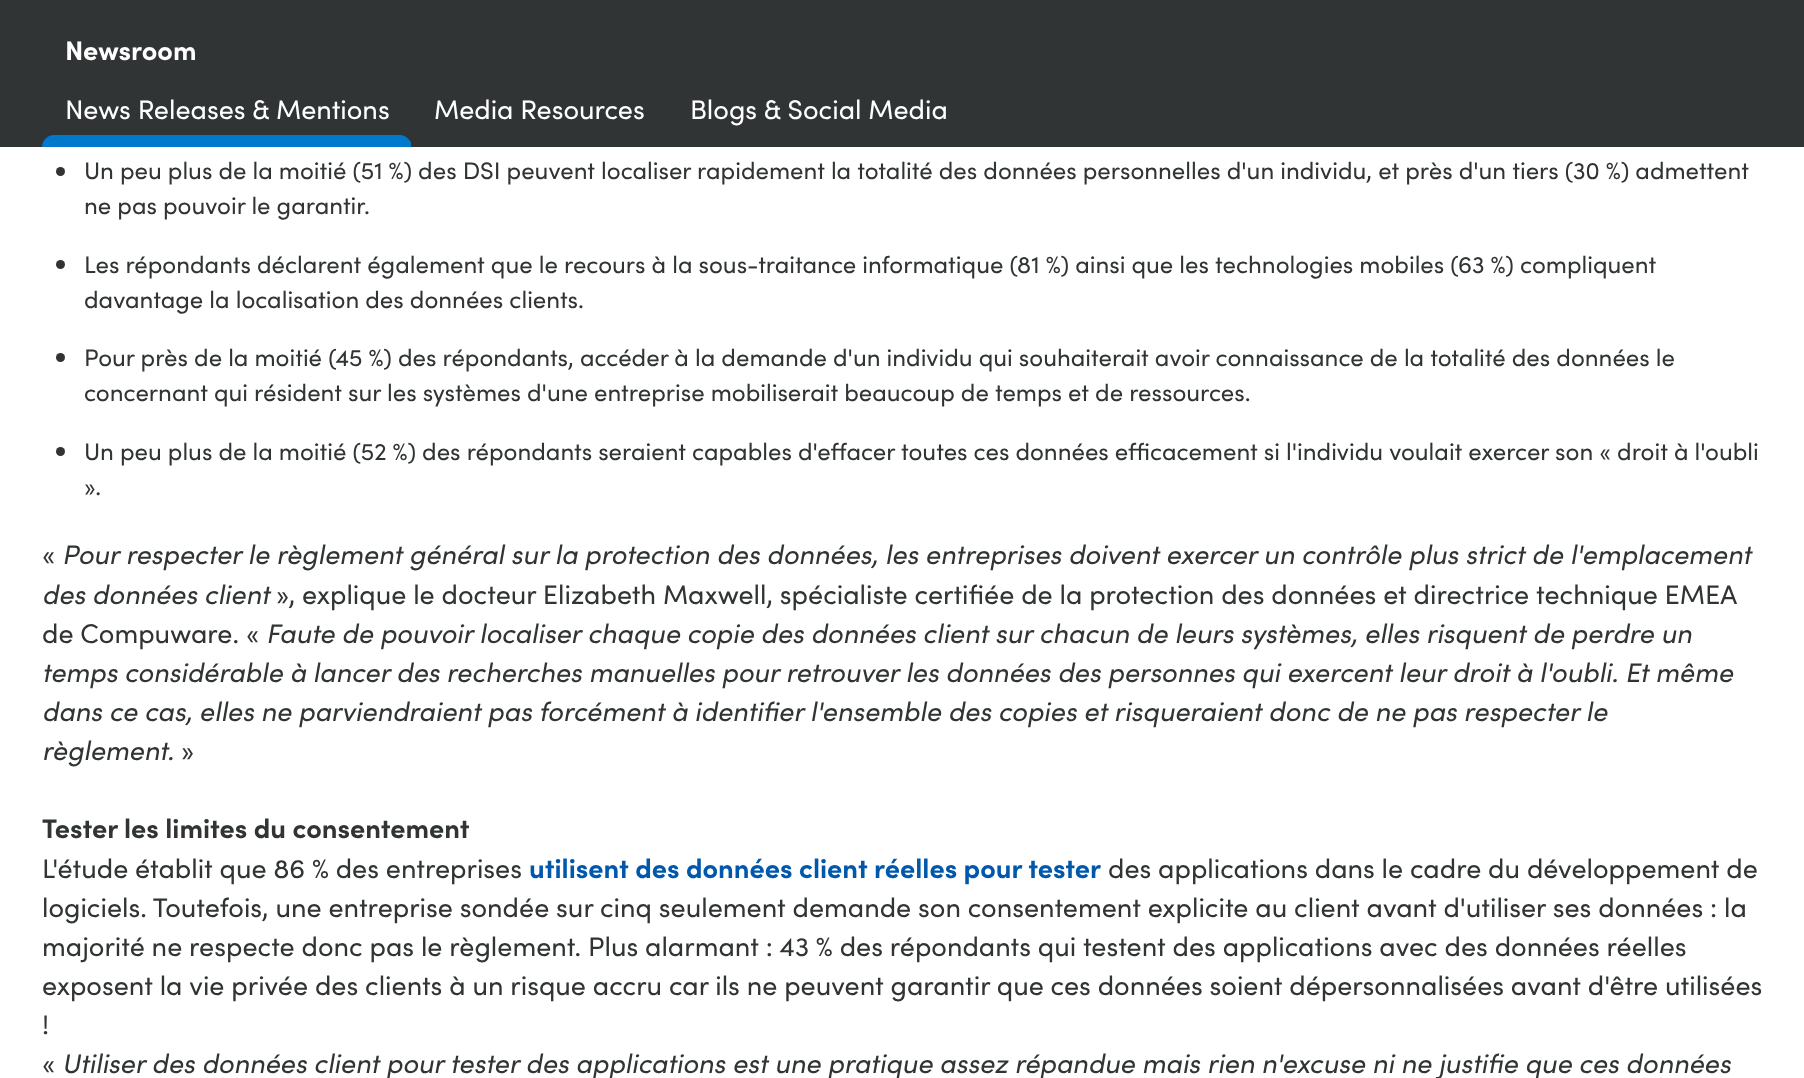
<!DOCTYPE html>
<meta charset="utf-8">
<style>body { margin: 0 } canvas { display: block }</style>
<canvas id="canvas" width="1804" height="1078"></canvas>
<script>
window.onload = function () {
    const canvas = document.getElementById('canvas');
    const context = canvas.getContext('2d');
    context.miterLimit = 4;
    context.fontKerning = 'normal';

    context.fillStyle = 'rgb(255, 255, 255)';
    context.fillRect(0, 0, 1804, 1078);
    context.fillStyle = 'rgb(49, 52, 53)';
    context.fillRect(0, 0, 1804, 147);
    context.fillStyle = 'rgb(0, 120, 204)';
    context.beginPath();
    context.moveTo(412, 147);
    context.lineTo(42, 147);
    context.bezierCurveTo(42, 141, 47, 135, 54, 135);
    context.lineTo(400, 135);
    context.bezierCurveTo(406, 135, 412, 141, 412, 147);
    context.closePath();
    context.fill();
    context.fillStyle = 'rgb(49, 52, 53)';
    context.fillRect(411, 142, 1, 5);
    context.beginPath();
    context.arc(60.5, 171.5, 4.5, 0, 2 * Math.PI);
    context.fill();
    context.beginPath();
    context.arc(60.5, 264.5, 4.5, 0, 2 * Math.PI);
    context.fill();
    context.beginPath();
    context.arc(60.5, 357.5, 4.5, 0, 2 * Math.PI);
    context.fill();
    context.beginPath();
    context.arc(60.5, 451.5, 4.5, 0, 2 * Math.PI);
    context.fill();
    context.font = 'bold 27px Sofia';
    context.fillStyle = 'rgb(255, 255, 255)';
    context.fillText('Newsroom', 65, 60);
    context.font = '27px Sofia';
    context.fillText('News Releases & Mentions', 65, 119);
    context.fillText('Media Resources', 434, 119);
    context.fillText('Blogs & Social Media', 690, 119);
    context.font = '24px Sofia';
    context.fillStyle = 'rgb(49, 52, 53)';
    context.fillText('Un peu plus de la moitié (51 %) des DSI peuvent localiser rapidement la totalité des données personnelles d\'un individu, et près d\'un tiers (30 %) admettent', 84, 179);
    context.fillText('ne pas pouvoir le garantir.', 84, 214);
    context.fillText('Les répondants déclarent également que le recours à la sous-traitance informatique (81 %) ainsi que les technologies mobiles (63 %) compliquent', 84, 273);
    context.fillText('davantage la localisation des données clients.', 84, 308);
    context.fillText('Pour près de la moitié (45 %) des répondants, accéder à la demande d\'un individu qui souhaiterait avoir connaissance de la totalité des données le', 84, 366);
    context.fillText('concernant qui résident sur les systèmes d\'une entreprise mobiliserait beaucoup de temps et de ressources.', 84, 401);
    context.fillText('Un peu plus de la moitié (52 %) des répondants seraient capables d\'effacer toutes ces données efficacement si l\'individu voulait exercer son « droit à l\'oubli', 84, 460);
    context.fillText('».', 84, 495);
    context.font = '27px Sofia';
    context.fillText('«', 42, 564);
    context.font = 'italic 27px Sofia';
    context.fillText('Pour respecter le règlement général sur la protection des données, les entreprises doivent exercer un contrôle plus strict de l\'emplacement', 62, 564);
    context.fillText('des données client', 42, 604);
    context.font = '27px Sofia';
    context.fillText('», explique le docteur Elizabeth Maxwell, spécialiste certifiée de la protection des données et directrice technique EMEA', 276, 604);
    context.fillText('de Compuware. «', 42, 643);
    context.font = 'italic 27px Sofia';
    context.fillText('Faute de pouvoir localiser chaque copie des données client sur chacun de leurs systèmes, elles risquent de perdre un', 266, 643);
    context.fillText('temps considérable à lancer des recherches manuelles pour retrouver les données des personnes qui exercent leur droit à l\'oubli. Et même', 42, 682);
    context.fillText('dans ce cas, elles ne parviendraient pas forcément à identifier l\'ensemble des copies et risqueraient donc de ne pas respecter le', 42, 721);
    context.fillText('règlement.', 42, 760);
    context.font = '27px Sofia';
    context.fillText('»', 181, 760);
    context.font = 'bold 27px Sofia';
    context.fillText('Tester les limites du consentement', 42, 838);
    context.font = '27px Sofia';
    context.fillText('L\'étude établit que 86 % des entreprises', 42, 878);
    context.font = 'bold 27px Sofia';
    context.fillStyle = 'rgb(0, 88, 172)';
    context.fillText('utilisent des données client réelles pour tester', 529, 878);
    context.font = '27px Sofia';
    context.fillStyle = 'rgb(49, 52, 53)';
    context.fillText('des applications dans le cadre du développement de', 1108, 878);
    context.fillText('logiciels. Toutefois, une entreprise sondée sur cinq seulement demande son consentement explicite au client avant d\'utiliser ses données : la', 42, 917);
    context.fillText('majorité ne respecte donc pas le règlement. Plus alarmant : 43 % des répondants qui testent des applications avec des données réelles', 42, 956);
    context.fillText('exposent la vie privée des clients à un risque accru car ils ne peuvent garantir que ces données soient dépersonnalisées avant d\'être utilisées', 42, 995);
    context.fillText('!', 42, 1034);
    context.fillText('«', 42, 1073);
    context.font = 'italic 27px Sofia';
    context.fillText('Utiliser des données client pour tester des applications est une pratique assez répandue mais rien n\'excuse ni ne justifie que ces données', 62, 1073);
};
</script>
